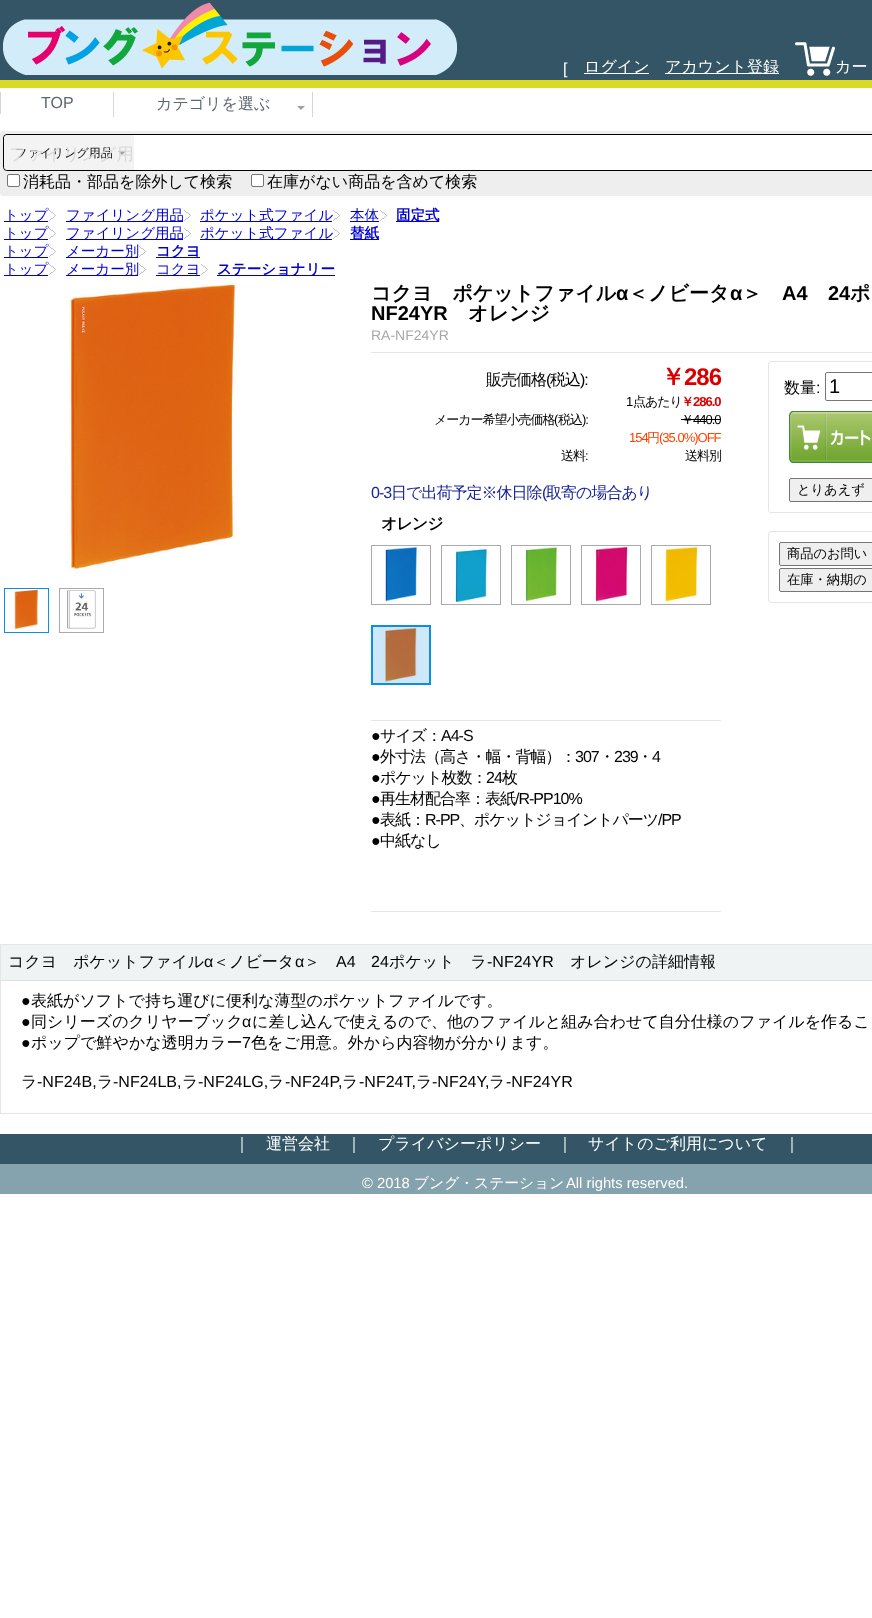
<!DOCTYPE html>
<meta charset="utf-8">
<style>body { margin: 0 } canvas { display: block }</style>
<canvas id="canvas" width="872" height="1618"></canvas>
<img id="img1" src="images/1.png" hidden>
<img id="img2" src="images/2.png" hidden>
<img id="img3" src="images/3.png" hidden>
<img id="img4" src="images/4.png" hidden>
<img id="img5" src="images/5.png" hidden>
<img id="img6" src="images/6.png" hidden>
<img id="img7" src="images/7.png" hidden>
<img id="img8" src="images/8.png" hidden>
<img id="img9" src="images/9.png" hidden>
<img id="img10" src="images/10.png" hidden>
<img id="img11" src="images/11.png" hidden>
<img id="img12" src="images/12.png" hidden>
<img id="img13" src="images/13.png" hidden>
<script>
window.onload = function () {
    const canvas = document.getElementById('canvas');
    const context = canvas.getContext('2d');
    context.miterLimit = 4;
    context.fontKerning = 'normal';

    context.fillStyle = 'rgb(255, 255, 255)';
    context.fillRect(0, 0, 872, 1618);
    context.fillStyle = 'rgb(51, 85, 102)';
    context.fillRect(0, 0, 872, 80);
    context.fillStyle = 'rgb(217, 217, 38)';
    context.fillRect(0, 80, 872, 8);
    context.drawImage(document.getElementById('img1'), 3, 2, 454, 73);
    context.fillStyle = 'rgb(255, 255, 255)';
    context.fillRect(584, 73, 65, 1);
    context.fillRect(665, 73, 114, 1);
    context.drawImage(document.getElementById('img2'), 795, 42, 40, 34);
    context.fillStyle = 'rgb(212, 216, 219)';
    context.fillRect(0, 92, 1, 22);
    context.fillRect(312, 92, 1, 25);
    context.fillRect(113, 92, 1, 25);
    context.fillStyle = 'rgb(160, 160, 160)';
    context.beginPath();
    context.moveTo(297, 106);
    context.lineTo(305, 106);
    context.lineTo(301, 110);
    context.closePath();
    context.fill();
    context.fillStyle = 'rgb(238, 238, 238)';
    context.beginPath();
    context.roundRect(0, 131, 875, 65, 3);
    context.fill();
    context.beginPath();
    context.roundRect(3.5, 134.5, 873, 36, 3.5);
    context.strokeStyle = 'rgb(0, 0, 0)';
    context.stroke();
    context.save();
    context.beginPath();
    context.roundRect(4, 135, 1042, 35, 3);
    context.clip();
    context.fillStyle = 'rgb(243, 243, 243)';
    context.beginPath();
    context.roundRect(4, 135, 130, 35, [4, 0, 0, 4]);
    context.fill();
    context.restore();
    context.fillStyle = 'rgb(243, 243, 243)';
    context.beginPath();
    context.moveTo(8, 135);
    context.lineTo(134, 135);
    context.lineTo(134, 170);
    context.lineTo(8, 170);
    context.bezierCurveTo(6, 170, 4, 168, 4, 166);
    context.lineTo(4, 139);
    context.bezierCurveTo(4, 137, 6, 135, 8, 135);
    context.closePath();
    context.moveTo(8, 136);
    context.lineTo(134, 136);
    context.lineTo(134, 169);
    context.lineTo(8, 169);
    context.bezierCurveTo(6, 169, 5, 168, 5, 166);
    context.lineTo(5, 139);
    context.bezierCurveTo(5, 137, 6, 136, 8, 136);
    context.closePath();
    context.fill('evenodd');
    context.fillStyle = 'rgb(160, 160, 160)';
    context.beginPath();
    context.moveTo(118, 151);
    context.lineTo(126, 151);
    context.lineTo(122, 155);
    context.closePath();
    context.fill();
    context.fillStyle = 'rgb(255, 255, 255)';
    context.fillRect(134, 135, 738, 35);
    context.beginPath();
    context.roundRect(7.5, 174.5, 12, 12, 1.5);
    context.fill();
    context.strokeStyle = 'rgb(118, 118, 118)';
    context.stroke();
    context.beginPath();
    context.roundRect(251.5, 174.5, 12, 12, 1.5);
    context.fill();
    context.stroke();
    context.fillStyle = 'rgb(0, 0, 204)';
    context.fillRect(4, 221, 44, 1);
    context.drawImage(document.getElementById('img3'), 49, 210, 7, 11);
    context.fillRect(66, 221, 117, 1);
    context.drawImage(document.getElementById('img3'), 184, 210, 7, 11);
    context.fillRect(200, 221, 132, 1);
    context.drawImage(document.getElementById('img3'), 333, 210, 7, 11);
    context.fillRect(350, 221, 29, 1);
    context.drawImage(document.getElementById('img3'), 380, 210, 7, 11);
    context.fillRect(396, 221, 43, 1);
    context.fillRect(4, 239, 44, 1);
    context.drawImage(document.getElementById('img3'), 49, 228, 7, 11);
    context.fillRect(66, 239, 117, 1);
    context.drawImage(document.getElementById('img3'), 184, 228, 7, 11);
    context.fillRect(200, 239, 132, 1);
    context.drawImage(document.getElementById('img3'), 333, 228, 7, 11);
    context.fillRect(350, 239, 29, 1);
    context.fillRect(4, 257, 44, 1);
    context.drawImage(document.getElementById('img3'), 49, 246, 7, 11);
    context.fillRect(66, 257, 72, 1);
    context.drawImage(document.getElementById('img3'), 139, 246, 7, 11);
    context.fillRect(156, 257, 44, 1);
    context.fillRect(4, 275, 44, 1);
    context.drawImage(document.getElementById('img3'), 49, 264, 7, 11);
    context.fillRect(66, 275, 72, 1);
    context.drawImage(document.getElementById('img3'), 139, 264, 7, 11);
    context.fillRect(156, 275, 44, 1);
    context.drawImage(document.getElementById('img3'), 201, 264, 7, 11);
    context.fillRect(217, 275, 118, 1);
    context.drawImage(document.getElementById('img4'), 66, 284, 171, 289);
    context.strokeStyle = 'rgb(13, 141, 230)';
    context.strokeRect(4.5, 588.5, 44, 44);
    context.drawImage(document.getElementById('img5'), 14, 589, 25, 41);
    context.strokeStyle = 'rgb(170, 170, 170)';
    context.strokeRect(59.5, 588.5, 44, 44);
    context.drawImage(document.getElementById('img6'), 67, 590, 29, 39);
    context.fillStyle = 'rgb(229, 229, 229)';
    context.fillRect(371, 352, 501, 1);
    context.fillStyle = 'rgb(0, 0, 0)';
    context.fillRect(681, 419, 40, 1);
    context.strokeRect(371.5, 545.5, 59, 59);
    context.drawImage(document.getElementById('img7'), 384, 546, 34, 56);
    context.strokeRect(441.5, 545.5, 59, 59);
    context.drawImage(document.getElementById('img8'), 454, 547, 35, 56);
    context.strokeRect(511.5, 545.5, 59, 59);
    context.drawImage(document.getElementById('img9'), 525, 546, 34, 56);
    context.strokeRect(581.5, 545.5, 59, 59);
    context.drawImage(document.getElementById('img10'), 595, 546, 34, 57);
    context.strokeRect(651.5, 545.5, 59, 59);
    context.drawImage(document.getElementById('img11'), 662, 546, 37, 57);
    context.fillStyle = 'rgb(13, 141, 230)';
    context.fillRect(371, 625, 60, 60);
    context.drawImage(document.getElementById('img12'), 373, 627, 56, 56);
    context.fillStyle = 'rgb(229, 229, 229)';
    context.fillRect(371, 720, 350, 1);
    context.fillRect(371, 911, 350, 1);
    context.beginPath();
    context.roundRect(768.5, 361.5, 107, 151, 2.5);
    context.strokeStyle = 'rgb(229, 229, 229)';
    context.stroke();
    context.beginPath();
    context.roundRect(825.5, 372.5, 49, 28, 1.5);
    context.strokeStyle = 'rgb(118, 118, 118)';
    context.stroke();
    context.drawImage(document.getElementById('img13'), 789, 411, 83, 52);
    context.fillStyle = 'rgb(239, 239, 239)';
    context.beginPath();
    context.roundRect(789.5, 478.5, 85, 23, 1.5);
    context.fill();
    context.stroke();
    context.beginPath();
    context.roundRect(768.5, 531.5, 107, 71, 2.5);
    context.strokeStyle = 'rgb(229, 229, 229)';
    context.stroke();
    context.beginPath();
    context.roundRect(779.5, 542.5, 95, 23, 1.5);
    context.fill();
    context.strokeStyle = 'rgb(118, 118, 118)';
    context.stroke();
    context.beginPath();
    context.roundRect(779.5, 568.5, 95, 23, 1.5);
    context.fill();
    context.stroke();
    context.strokeStyle = 'rgb(229, 229, 229)';
    context.strokeRect(0.5, 944.5, 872, 169);
    context.fillStyle = 'rgb(239, 243, 243)';
    context.fillRect(1, 945, 871, 35);
    context.fillStyle = 'rgb(224, 224, 224)';
    context.fillRect(1, 980, 871, 1);
    context.fillStyle = 'rgb(51, 85, 102)';
    context.fillRect(0, 1134, 872, 30);
    context.fillStyle = 'rgb(133, 163, 174)';
    context.fillRect(0, 1164, 872, 30);
    context.font = '16px Liberation Sans';
    context.fillStyle = 'rgb(255, 255, 255)';
    context.fillText('[', 563, 74);
    context.font = '500 16px WenQuanYi Zen Hei';
    context.fillText('ログイン', 584, 72);
    context.fillText('アカウント登録', 665, 72);
    context.fillText('カー', 835, 72);
    context.font = '16px Liberation Sans';
    context.fillStyle = 'rgb(93, 105, 112)';
    context.fillText('TOP', 41, 108);
    context.font = '500 16px WenQuanYi Zen Hei';
    context.fillText('カテゴリを選ぶ', 156, 109);
    context.font = '500 12px WenQuanYi Zen Hei';
    context.fillStyle = 'rgb(0, 0, 0)';
    context.fillText('ファイリング用品', 15, 157);
    context.font = '500 17.5px WenQuanYi Zen Hei';
    context.fillStyle = 'rgb(217, 217, 217)';
    context.fillText('ファイリング用', 9, 160);
    context.font = '500 16px WenQuanYi Zen Hei';
    context.fillStyle = 'rgb(0, 0, 0)';
    context.fillText('消耗品・部品を除外して検索', 23, 187);
    context.fillText('在庫がない商品を含めて検索', 267, 187);
    context.font = '500 14.5px WenQuanYi Zen Hei';
    context.fillStyle = 'rgb(0, 0, 204)';
    context.fillText('トップ', 4, 220);
    context.fillText('ファイリング用品', 66, 220);
    context.fillText('ポケット式ファイル', 200, 220);
    context.fillText('本体', 350, 220);
    context.font = 'bold 14.5px WenQuanYi Zen Hei';
    context.fillText('固定式', 396, 220);
    context.font = '500 14.5px WenQuanYi Zen Hei';
    context.fillText('トップ', 4, 238);
    context.fillText('ファイリング用品', 66, 238);
    context.fillText('ポケット式ファイル', 200, 238);
    context.font = 'bold 14.5px WenQuanYi Zen Hei';
    context.fillText('替紙', 350, 238);
    context.font = '500 14.5px WenQuanYi Zen Hei';
    context.fillText('トップ', 4, 256);
    context.fillText('メーカー別', 66, 256);
    context.font = 'bold 14.5px WenQuanYi Zen Hei';
    context.fillText('コクヨ', 156, 256);
    context.font = '500 14.5px WenQuanYi Zen Hei';
    context.fillText('トップ', 4, 274);
    context.fillText('メーカー別', 66, 274);
    context.fillText('コクヨ', 156, 274);
    context.font = 'bold 14.5px WenQuanYi Zen Hei';
    context.fillText('ステーショナリー', 217, 274);
    context.font = 'bold 20px WenQuanYi Zen Hei';
    context.fillStyle = 'rgb(0, 0, 0)';
    context.fillText('コクヨ　ポケットファイル', 371, 300);
    context.font = 'bold 20px Liberation Sans';
    context.fillText('α', 616, 300);
    context.font = 'bold 20px WenQuanYi Zen Hei';
    context.fillText('＜ノビータ', 628, 300);
    context.font = 'bold 20px Liberation Sans';
    context.fillText('α', 730, 300);
    context.font = 'bold 20px WenQuanYi Zen Hei';
    context.fillText('＞', 742, 300);
    context.font = 'bold 20px Liberation Sans';
    context.fillText('A4', 782, 300);
    context.fillText('24', 828, 300);
    context.font = 'bold 20px WenQuanYi Zen Hei';
    context.fillText('ポ', 850, 300);
    context.font = 'bold 20px Liberation Sans';
    context.fillText('NF24YR', 371, 320);
    context.font = 'bold 20px WenQuanYi Zen Hei';
    context.fillText('オレンジ', 468, 320);
    context.font = '14px Liberation Sans';
    context.fillStyle = 'rgb(167, 167, 167)';
    context.fillText('RA-NF24YR', 371, 340);
    context.letterSpacing = '-1px';
    context.font = '500 16px WenQuanYi Zen Hei';
    context.fillStyle = 'rgb(0, 0, 0)';
    context.fillText('販売価格', 486, 385);
    context.font = '16px Liberation Sans';
    context.fillText('(', 546, 385);
    context.font = '500 16px WenQuanYi Zen Hei';
    context.fillText('税込', 550, 385);
    context.font = '16px Liberation Sans';
    context.fillText('):', 580, 385);
    context.font = 'bold 24px WenQuanYi Zen Hei';
    context.fillStyle = 'rgb(216, 0, 0)';
    context.fillText('￥', 661, 385);
    context.font = 'bold 24px Liberation Sans';
    context.fillText('286', 684, 385);
    context.font = '13px Liberation Sans';
    context.fillStyle = 'rgb(0, 0, 0)';
    context.fillText('1', 626, 406);
    context.font = '500 13px WenQuanYi Zen Hei';
    context.fillText('点あたり', 633, 406);
    context.font = 'bold 13px WenQuanYi Zen Hei';
    context.fillStyle = 'rgb(216, 0, 0)';
    context.fillText('￥', 681, 406);
    context.font = 'bold 13px Liberation Sans';
    context.fillText('286.0', 693, 406);
    context.font = '500 13px WenQuanYi Zen Hei';
    context.fillStyle = 'rgb(0, 0, 0)';
    context.fillText('メーカー希望小売価格', 434, 424);
    context.font = '13px Liberation Sans';
    context.fillText('(', 554, 424);
    context.font = '500 13px WenQuanYi Zen Hei';
    context.fillText('税込', 558, 424);
    context.font = '13px Liberation Sans';
    context.fillText('):', 582, 424);
    context.font = '500 13px WenQuanYi Zen Hei';
    context.fillText('￥', 681, 424);
    context.font = '13px Liberation Sans';
    context.fillText('440.0', 693, 424);
    context.fillStyle = 'rgb(255, 64, 0)';
    context.fillText('154', 629, 442);
    context.font = '500 13px WenQuanYi Zen Hei';
    context.fillText('円', 647, 442);
    context.font = '13px Liberation Sans';
    context.fillText('(35.0%)OFF', 659, 442);
    context.font = '500 13px WenQuanYi Zen Hei';
    context.fillStyle = 'rgb(0, 0, 0)';
    context.fillText('送料', 561, 460);
    context.font = '13px Liberation Sans';
    context.fillText(':', 585, 460);
    context.font = '500 13px WenQuanYi Zen Hei';
    context.fillText('送料別', 685, 460);
    context.font = '16px Liberation Sans';
    context.fillStyle = 'rgb(23, 35, 151)';
    context.fillText('0-3', 371, 498);
    context.font = '500 16px WenQuanYi Zen Hei';
    context.fillText('日で出荷予定※休日除', 391, 498);
    context.font = '16px Liberation Sans';
    context.fillText('(', 542, 498);
    context.font = '500 16px WenQuanYi Zen Hei';
    context.fillText('取寄の場合あり', 546, 498);
    context.font = 'bold 16px WenQuanYi Zen Hei';
    context.fillStyle = 'rgb(0, 0, 0)';
    context.fillText('オレンジ', 381, 529);
    context.font = '16px Liberation Sans';
    context.fillText('●', 371, 741);
    context.font = '500 16px WenQuanYi Zen Hei';
    context.fillText('サイズ：', 380, 741);
    context.font = '16px Liberation Sans';
    context.fillText('A4-S', 441, 741);
    context.fillText('●', 371, 762);
    context.font = '500 16px WenQuanYi Zen Hei';
    context.fillText('外寸法（高さ・幅・背幅）：', 380, 762);
    context.font = '16px Liberation Sans';
    context.fillText('307', 575, 762);
    context.font = '500 16px WenQuanYi Zen Hei';
    context.fillText('・', 599, 762);
    context.font = '16px Liberation Sans';
    context.fillText('239', 614, 762);
    context.font = '500 16px WenQuanYi Zen Hei';
    context.fillText('・', 637, 762);
    context.font = '16px Liberation Sans';
    context.fillText('4', 652, 762);
    context.fillText('●', 371, 783);
    context.font = '500 16px WenQuanYi Zen Hei';
    context.fillText('ポケット枚数：', 380, 783);
    context.font = '16px Liberation Sans';
    context.fillText('24', 486, 783);
    context.font = '500 16px WenQuanYi Zen Hei';
    context.fillText('枚', 502, 783);
    context.font = '16px Liberation Sans';
    context.fillText('●', 371, 804);
    context.font = '500 16px WenQuanYi Zen Hei';
    context.fillText('再生材配合率：表紙', 380, 804);
    context.font = '16px Liberation Sans';
    context.fillText('/R-PP10%', 515, 804);
    context.fillText('●', 371, 825);
    context.font = '500 16px WenQuanYi Zen Hei';
    context.fillText('表紙：', 380, 825);
    context.font = '16px Liberation Sans';
    context.fillText('R-PP', 425, 825);
    context.font = '500 16px WenQuanYi Zen Hei';
    context.fillText('、ポケットジョイントパーツ', 459, 825);
    context.font = '16px Liberation Sans';
    context.fillText('/PP', 658, 825);
    context.fillText('●', 371, 846);
    context.font = '500 16px WenQuanYi Zen Hei';
    context.fillText('中紙なし', 380, 846);
    context.letterSpacing = '0px';
    context.fillText('数量', 784, 393);
    context.font = '16px Liberation Sans';
    context.fillText(':', 816, 393);
    context.font = '20px Liberation Sans';
    context.fillText('1', 829, 393);
    context.font = '500 13.25px WenQuanYi Zen Hei';
    context.fillText('とりあえず', 797, 494);
    context.fillText('商品のお問い', 787, 558);
    context.fillText('在庫・納期の', 787, 584);
    context.font = '500 16px WenQuanYi Zen Hei';
    context.fillText('コクヨ　ポケットファイル', 8, 967);
    context.font = '16px Liberation Sans';
    context.fillText('α', 204, 967);
    context.font = '500 16px WenQuanYi Zen Hei';
    context.fillText('＜ノビータ', 213, 967);
    context.font = '16px Liberation Sans';
    context.fillText('α', 295, 967);
    context.font = '500 16px WenQuanYi Zen Hei';
    context.fillText('＞', 304, 967);
    context.font = '16px Liberation Sans';
    context.fillText('A4', 336, 967);
    context.fillText('24', 371, 967);
    context.font = '500 16px WenQuanYi Zen Hei';
    context.fillText('ポケット　ラ', 389, 967);
    context.font = '16px Liberation Sans';
    context.fillText('-NF24YR', 487, 967);
    context.font = '500 16px WenQuanYi Zen Hei';
    context.fillText('オレンジの詳細情報', 570, 967);
    context.font = '16px Liberation Sans';
    context.fillText('●', 21, 1006);
    context.font = '500 16px WenQuanYi Zen Hei';
    context.fillText('表紙がソフトで持ち運びに便利な薄型のポケットファイルです。', 31, 1006);
    context.font = '16px Liberation Sans';
    context.fillText('●', 21, 1027);
    context.font = '500 16px WenQuanYi Zen Hei';
    context.fillText('同シリーズのクリヤーブック', 31, 1027);
    context.font = '16px Liberation Sans';
    context.fillText('α', 242, 1027);
    context.font = '500 16px WenQuanYi Zen Hei';
    context.fillText('に差し込んで使えるので、他のファイルと組み合わせて自分仕様のファイルを作るこ', 252, 1027);
    context.font = '16px Liberation Sans';
    context.fillText('●', 21, 1048);
    context.font = '500 16px WenQuanYi Zen Hei';
    context.fillText('ポップで鮮やかな透明カラー', 31, 1048);
    context.font = '16px Liberation Sans';
    context.fillText('7', 242, 1048);
    context.font = '500 16px WenQuanYi Zen Hei';
    context.fillText('色をご用意。外から内容物が分かります。', 251, 1048);
    context.fillText('ラ', 21, 1087);
    context.font = '16px Liberation Sans';
    context.fillText('-NF24B,', 37, 1087);
    context.font = '500 16px WenQuanYi Zen Hei';
    context.fillText('ラ', 97, 1087);
    context.font = '16px Liberation Sans';
    context.fillText('-NF24LB,', 113, 1087);
    context.font = '500 16px WenQuanYi Zen Hei';
    context.fillText('ラ', 182, 1087);
    context.font = '16px Liberation Sans';
    context.fillText('-NF24LG,', 198, 1087);
    context.font = '500 16px WenQuanYi Zen Hei';
    context.fillText('ラ', 268, 1087);
    context.font = '16px Liberation Sans';
    context.fillText('-NF24P,', 285, 1087);
    context.font = '500 16px WenQuanYi Zen Hei';
    context.fillText('ラ', 342, 1087);
    context.font = '16px Liberation Sans';
    context.fillText('-NF24T,', 359, 1087);
    context.font = '500 16px WenQuanYi Zen Hei';
    context.fillText('ラ', 416, 1087);
    context.font = '16px Liberation Sans';
    context.fillText('-NF24Y,', 432, 1087);
    context.font = '500 16px WenQuanYi Zen Hei';
    context.fillText('ラ', 489, 1087);
    context.font = '16px Liberation Sans';
    context.fillText('-NF24YR', 506, 1087);
    context.font = '500 16px WenQuanYi Zen Hei';
    context.fillStyle = 'rgb(255, 255, 255)';
    context.fillText('｜', 234, 1149);
    context.fillText('運営会社', 266, 1149);
    context.fillText('｜', 346, 1149);
    context.fillText('プライバシーポリシー', 378, 1149);
    context.fillText('｜', 557, 1149);
    context.fillText('サイトのご利用について', 588, 1149);
    context.fillText('｜', 784, 1149);
    context.font = '14.75px Liberation Sans';
    context.fillText('© 2018', 362, 1188);
    context.font = '500 14.75px WenQuanYi Zen Hei';
    context.fillText('ブング・ステーション', 414, 1188);
    context.font = '14.75px Liberation Sans';
    context.fillText('All rights reserved.', 566, 1188);
};
</script>
